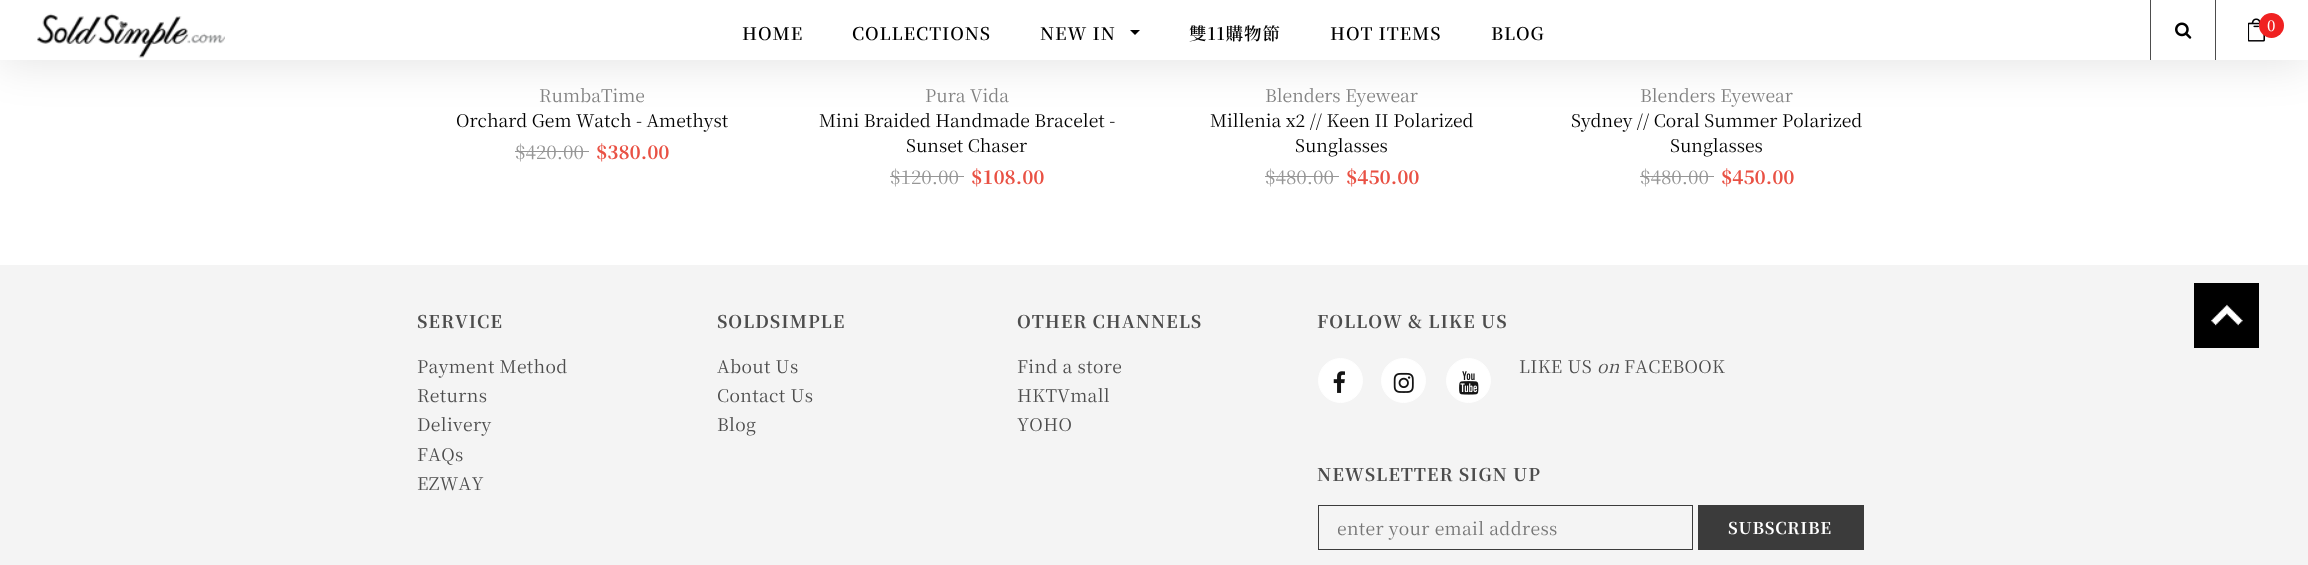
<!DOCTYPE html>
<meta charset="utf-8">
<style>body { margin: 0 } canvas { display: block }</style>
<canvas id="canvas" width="2308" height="565"></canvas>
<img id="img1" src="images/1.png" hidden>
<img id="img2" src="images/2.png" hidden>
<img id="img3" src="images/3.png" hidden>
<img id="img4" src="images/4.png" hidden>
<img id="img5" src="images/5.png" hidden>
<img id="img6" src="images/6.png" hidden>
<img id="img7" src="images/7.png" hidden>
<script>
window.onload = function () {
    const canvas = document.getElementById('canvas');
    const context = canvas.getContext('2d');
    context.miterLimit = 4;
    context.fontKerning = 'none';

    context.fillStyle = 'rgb(255, 255, 255)';
    context.fillRect(0, 0, 2308, 565);
    context.fillStyle = 'rgba(0, 0, 0, 0.1)';
    context.filter = 'blur(22px)';
    context.beginPath();
    context.rect(0, 5, 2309, 60);
    context.fill();
    context.filter = 'none';
    context.fillStyle = 'rgb(255, 255, 255)';
    context.fillRect(0, 0, 2308, 60);
    context.drawImage(document.getElementById('img1'), 37, 13, 188, 45);
    context.fillStyle = 'rgb(0, 0, 0)';
    context.beginPath();
    context.moveTo(1130, 30);
    context.lineTo(1140, 30);
    context.lineTo(1135, 35);
    context.closePath();
    context.fill();
    context.fillStyle = 'rgb(77, 77, 77)';
    context.fillRect(2150, 0, 1, 60);
    context.drawImage(document.getElementById('img2'), 2175, 22, 17, 17);
    context.drawImage(document.getElementById('img3'), 2248, 18, 17, 24);
    context.fillRect(2215, 0, 1, 60);
    context.fillStyle = 'rgb(240, 33, 33)';
    context.beginPath();
    context.arc(2271.5, 25.5, 12.5, 0, 2 * Math.PI);
    context.fill();
    context.fillStyle = 'rgb(150, 150, 150)';
    context.fillRect(515, 151, 74, 1);
    context.fillRect(890, 176, 74, 1);
    context.fillRect(1265, 176, 74, 1);
    context.fillRect(1640, 176, 74, 1);
    context.fillStyle = 'rgb(244, 244, 244)';
    context.fillRect(0, 265, 2308, 300);
    context.fillStyle = 'rgb(255, 255, 255)';
    context.beginPath();
    context.arc(1340.5, 380.5, 22, 0, 2 * Math.PI);
    context.fill();
    context.strokeStyle = 'rgb(255, 255, 255)';
    context.stroke();
    context.drawImage(document.getElementById('img4'), 1333, 371, 12, 22);
    context.beginPath();
    context.arc(1403.5, 380.5, 22, 0, 2 * Math.PI);
    context.fill();
    context.stroke();
    context.drawImage(document.getElementById('img5'), 1393, 372, 21, 21);
    context.beginPath();
    context.arc(1468.5, 380.5, 22, 0, 2 * Math.PI);
    context.fill();
    context.stroke();
    context.drawImage(document.getElementById('img6'), 1459, 371, 20, 24);
    context.strokeStyle = 'rgb(59, 59, 59)';
    context.strokeRect(1318.5, 505.5, 374, 44);
    context.fillStyle = 'rgb(59, 59, 59)';
    context.fillRect(1698, 505, 166, 45);
    context.fillStyle = 'rgb(0, 0, 0)';
    context.fillRect(2194, 283, 65, 65);
    context.drawImage(document.getElementById('img7'), 2211, 304, 32, 22);
    context.letterSpacing = '0.9px';
    context.font = '600 17.5px Noto Serif TC';
    context.fillText('HOME', 742, 40);
    context.fillText('COLLECTIONS', 852, 40);
    context.fillText('NEW IN', 1040, 40);
    context.fillText('雙11購物節', 1189, 40);
    context.fillText('HOT ITEMS', 1330, 40);
    context.fillText('BLOG', 1491, 40);
    context.letterSpacing = '0px';
    context.font = '500 15px Noto Serif TC';
    context.fillStyle = 'rgb(255, 255, 255)';
    context.fillText('0', 2267, 31);
    context.font = '17.5px Noto Serif TC';
    context.fillStyle = 'rgb(130, 130, 130)';
    context.fillText('RumbaTime', 539, 102);
    context.fillStyle = 'rgb(0, 0, 0)';
    context.fillText('Orchard Gem Watch - Amethyst', 456, 127);
    context.font = '19px Noto Serif TC';
    context.fillStyle = 'rgb(150, 150, 150)';
    context.fillText('$420.00', 515, 159);
    context.font = 'bold 19px Noto Serif TC';
    context.fillStyle = 'rgb(233, 81, 68)';
    context.fillText('$380.00', 596, 159);
    context.font = '17.5px Noto Serif TC';
    context.fillStyle = 'rgb(130, 130, 130)';
    context.fillText('Pura Vida', 925, 102);
    context.fillStyle = 'rgb(0, 0, 0)';
    context.fillText('Mini Braided Handmade Bracelet -', 819, 127);
    context.fillText('Sunset Chaser', 906, 152);
    context.font = '19px Noto Serif TC';
    context.fillStyle = 'rgb(150, 150, 150)';
    context.fillText('$120.00', 890, 184);
    context.font = 'bold 19px Noto Serif TC';
    context.fillStyle = 'rgb(233, 81, 68)';
    context.fillText('$108.00', 971, 184);
    context.font = '17.5px Noto Serif TC';
    context.fillStyle = 'rgb(130, 130, 130)';
    context.fillText('Blenders Eyewear', 1265, 102);
    context.fillStyle = 'rgb(0, 0, 0)';
    context.fillText('Millenia x2 // Keen II Polarized', 1210, 127);
    context.fillText('Sunglasses', 1295, 152);
    context.font = '19px Noto Serif TC';
    context.fillStyle = 'rgb(150, 150, 150)';
    context.fillText('$480.00', 1265, 184);
    context.font = 'bold 19px Noto Serif TC';
    context.fillStyle = 'rgb(233, 81, 68)';
    context.fillText('$450.00', 1346, 184);
    context.font = '17.5px Noto Serif TC';
    context.fillStyle = 'rgb(130, 130, 130)';
    context.fillText('Blenders Eyewear', 1640, 102);
    context.fillStyle = 'rgb(0, 0, 0)';
    context.fillText('Sydney // Coral Summer Polarized', 1571, 127);
    context.fillText('Sunglasses', 1670, 152);
    context.font = '19px Noto Serif TC';
    context.fillStyle = 'rgb(150, 150, 150)';
    context.fillText('$480.00', 1640, 184);
    context.font = 'bold 19px Noto Serif TC';
    context.fillStyle = 'rgb(233, 81, 68)';
    context.fillText('$450.00', 1721, 184);
    context.letterSpacing = '0.9px';
    context.font = 'bold 17.5px Noto Serif TC';
    context.fillStyle = 'rgb(77, 77, 77)';
    context.fillText('SERVICE', 417, 328);
    context.letterSpacing = '0.35px';
    context.font = '17.5px Noto Serif TC';
    context.fillText('Payment Method', 417, 373);
    context.fillText('Returns', 417, 402);
    context.fillText('Delivery', 417, 431);
    context.fillText('FAQs', 417, 461);
    context.fillText('EZWAY', 417, 490);
    context.letterSpacing = '0.9px';
    context.font = 'bold 17.5px Noto Serif TC';
    context.fillText('SOLDSIMPLE', 717, 328);
    context.letterSpacing = '0.35px';
    context.font = '17.5px Noto Serif TC';
    context.fillText('About Us', 717, 373);
    context.fillText('Contact Us', 717, 402);
    context.fillText('Blog', 717, 431);
    context.letterSpacing = '0.9px';
    context.font = 'bold 17.5px Noto Serif TC';
    context.fillText('OTHER CHANNELS', 1017, 328);
    context.letterSpacing = '0.35px';
    context.font = '17.5px Noto Serif TC';
    context.fillText('Find a store', 1017, 373);
    context.fillText('HKTVmall', 1017, 402);
    context.fillText('YOHO', 1017, 431);
    context.letterSpacing = '0.9px';
    context.font = 'bold 17.5px Noto Serif TC';
    context.fillText('FOLLOW & LIKE US', 1317, 328);
    context.letterSpacing = '0.35px';
    context.font = '17.5px Noto Serif TC';
    context.fillText('LIKE US', 1519, 373);
    context.font = 'italic 17.5px Noto Serif TC';
    context.fillText('on', 1597, 373);
    context.font = '17.5px Noto Serif TC';
    context.fillText('FACEBOOK', 1624, 373);
    context.letterSpacing = '0.9px';
    context.font = 'bold 17.5px Noto Serif TC';
    context.fillText('NEWSLETTER SIGN UP', 1317, 481);
    context.save();
    context.beginPath();
    context.rect(1338, 515, 335, 25);
    context.clip();
    context.letterSpacing = '0.35px';
    context.font = '17.5px Noto Serif TC';
    context.fillStyle = 'rgb(117, 117, 117)';
    context.fillText('enter your email address', 1337, 535);
    context.restore();
    context.letterSpacing = '0.75px';
    context.font = 'bold 16.25px Noto Serif TC';
    context.fillStyle = 'rgb(255, 255, 255)';
    context.fillText('SUBSCRIBE', 1728, 534);
};
</script>
